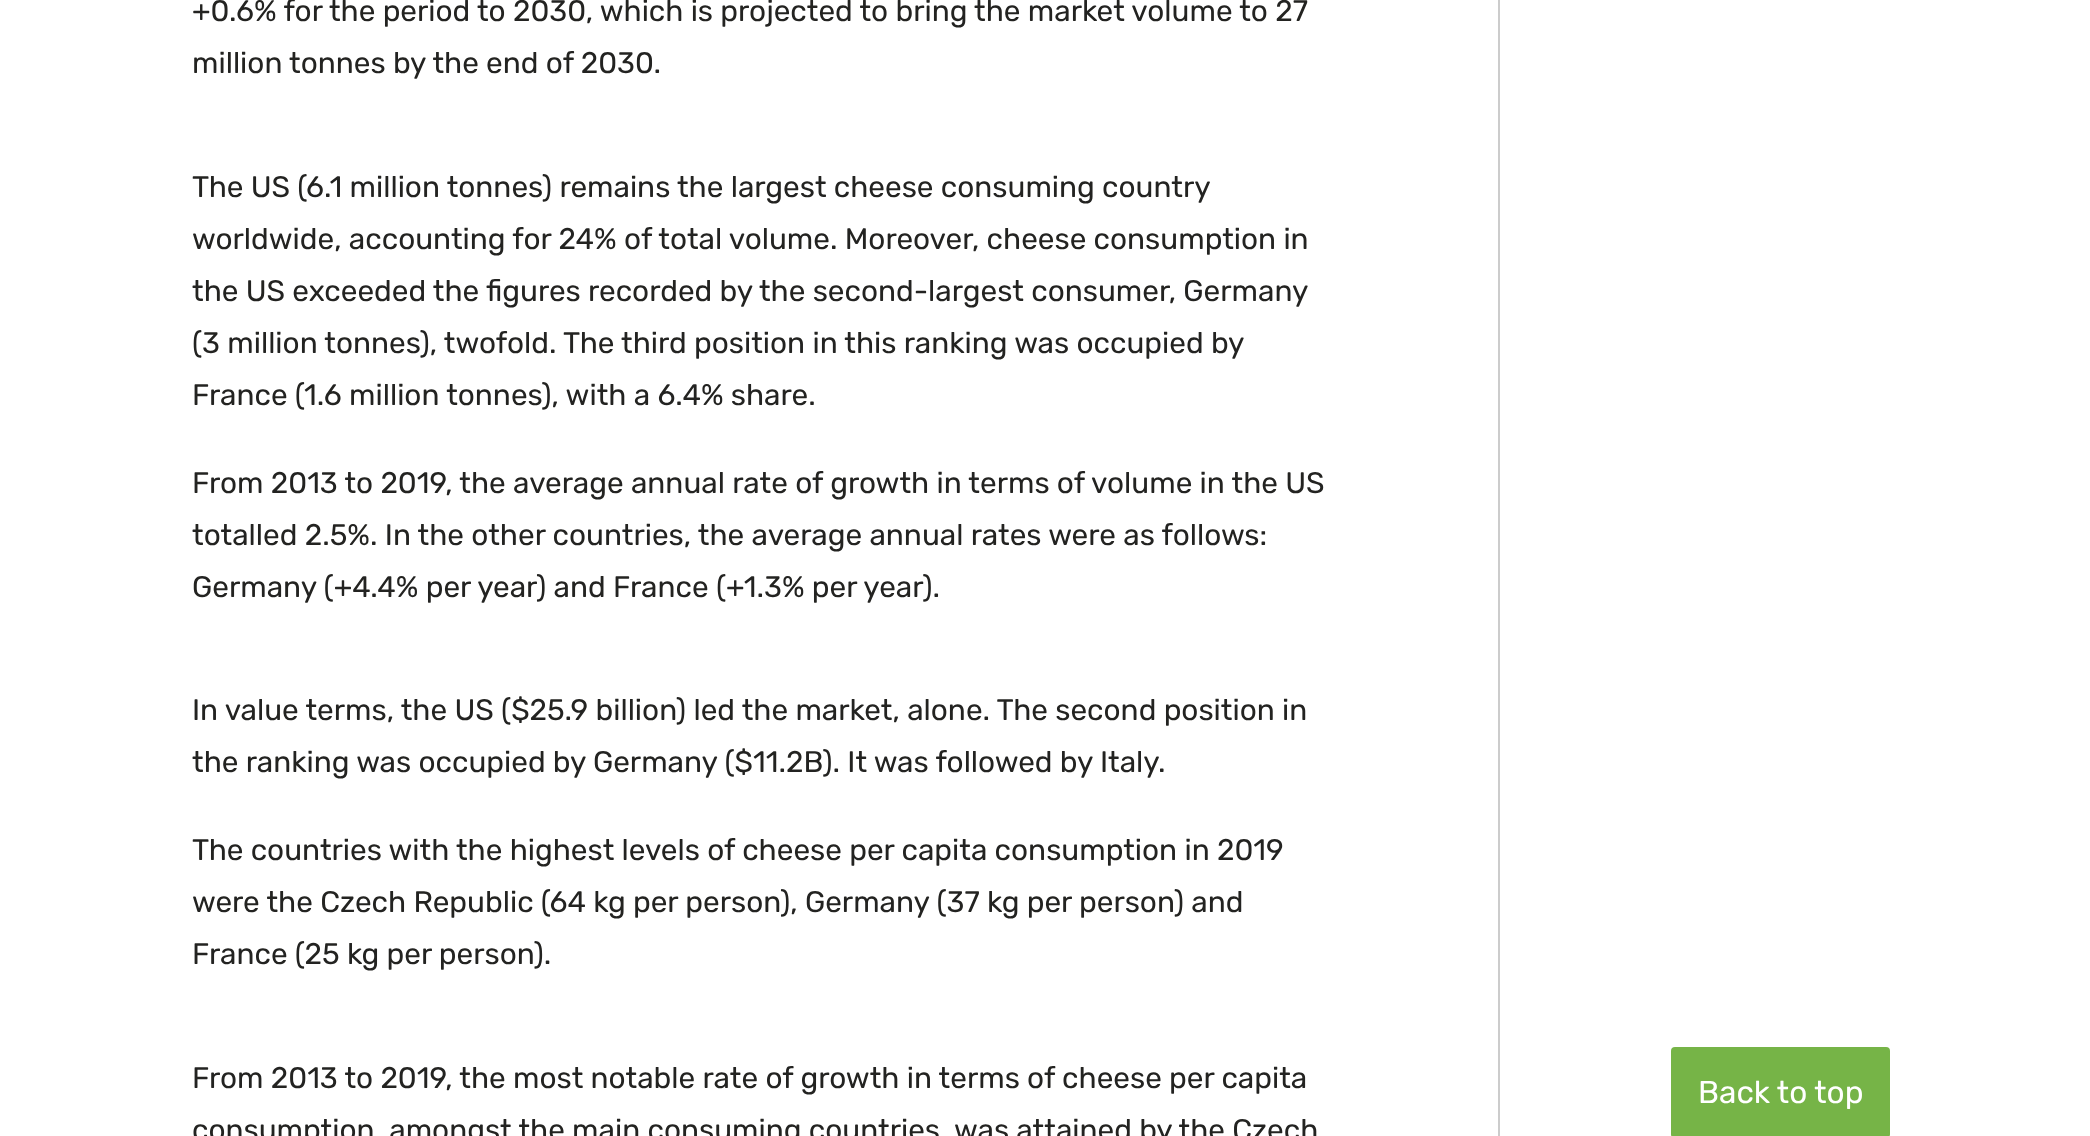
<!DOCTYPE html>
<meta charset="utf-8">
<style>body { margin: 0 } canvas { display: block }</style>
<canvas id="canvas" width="2090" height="1136"></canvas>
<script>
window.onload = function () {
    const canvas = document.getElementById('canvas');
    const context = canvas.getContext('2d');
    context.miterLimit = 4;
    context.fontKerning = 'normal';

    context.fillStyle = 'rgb(255, 255, 255)';
    context.fillRect(0, 0, 2090, 1136);
    context.fillStyle = 'rgb(204, 204, 204)';
    context.fillRect(1498, 0, 2, 1136);
    context.fillStyle = 'rgb(118, 180, 71)';
    context.beginPath();
    context.roundRect(1671, 1047, 219, 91, 4);
    context.fill();
    context.font = '29.75px Rubik';
    context.fillStyle = 'rgb(35, 35, 33)';
    context.fillText('+0.6% for the period to 2030, which is projected to bring the market volume to 27', 192, 21);
    context.fillText('million tonnes by the end of 2030.', 192, 73);
    context.fillText('The US (6.1 million tonnes) remains the largest cheese consuming country', 192, 197);
    context.fillText('worldwide, accounting for 24% of total volume. Moreover, cheese consumption in', 192, 249);
    context.fillText('the US exceeded the figures recorded by the second-largest consumer, Germany', 192, 301);
    context.fillText('(3 million tonnes), twofold. The third position in this ranking was occupied by', 192, 353);
    context.fillText('France (1.6 million tonnes), with a 6.4% share.', 192, 405);
    context.fillText('From 2013 to 2019, the average annual rate of growth in terms of volume in the US', 192, 493);
    context.fillText('totalled 2.5%. In the other countries, the average annual rates were as follows:', 192, 545);
    context.fillText('Germany (+4.4% per year) and France (+1.3% per year).', 192, 597);
    context.fillText('In value terms, the US ($25.9 billion) led the market, alone. The second position in', 192, 720);
    context.fillText('the ranking was occupied by Germany ($11.2B). It was followed by Italy.', 192, 772);
    context.fillText('The countries with the highest levels of cheese per capita consumption in 2019', 192, 860);
    context.fillText('were the Czech Republic (64 kg per person), Germany (37 kg per person) and', 192, 912);
    context.fillText('France (25 kg per person).', 192, 964);
    context.fillText('From 2013 to 2019, the most notable rate of growth in terms of cheese per capita', 192, 1088);
    context.fillText('consumption, amongst the main consuming countries, was attained by the Czech', 192, 1140);
    context.font = '31.5px Rubik';
    context.fillStyle = 'rgb(255, 255, 255)';
    context.fillText('Back to top', 1698, 1103);
};
</script>
